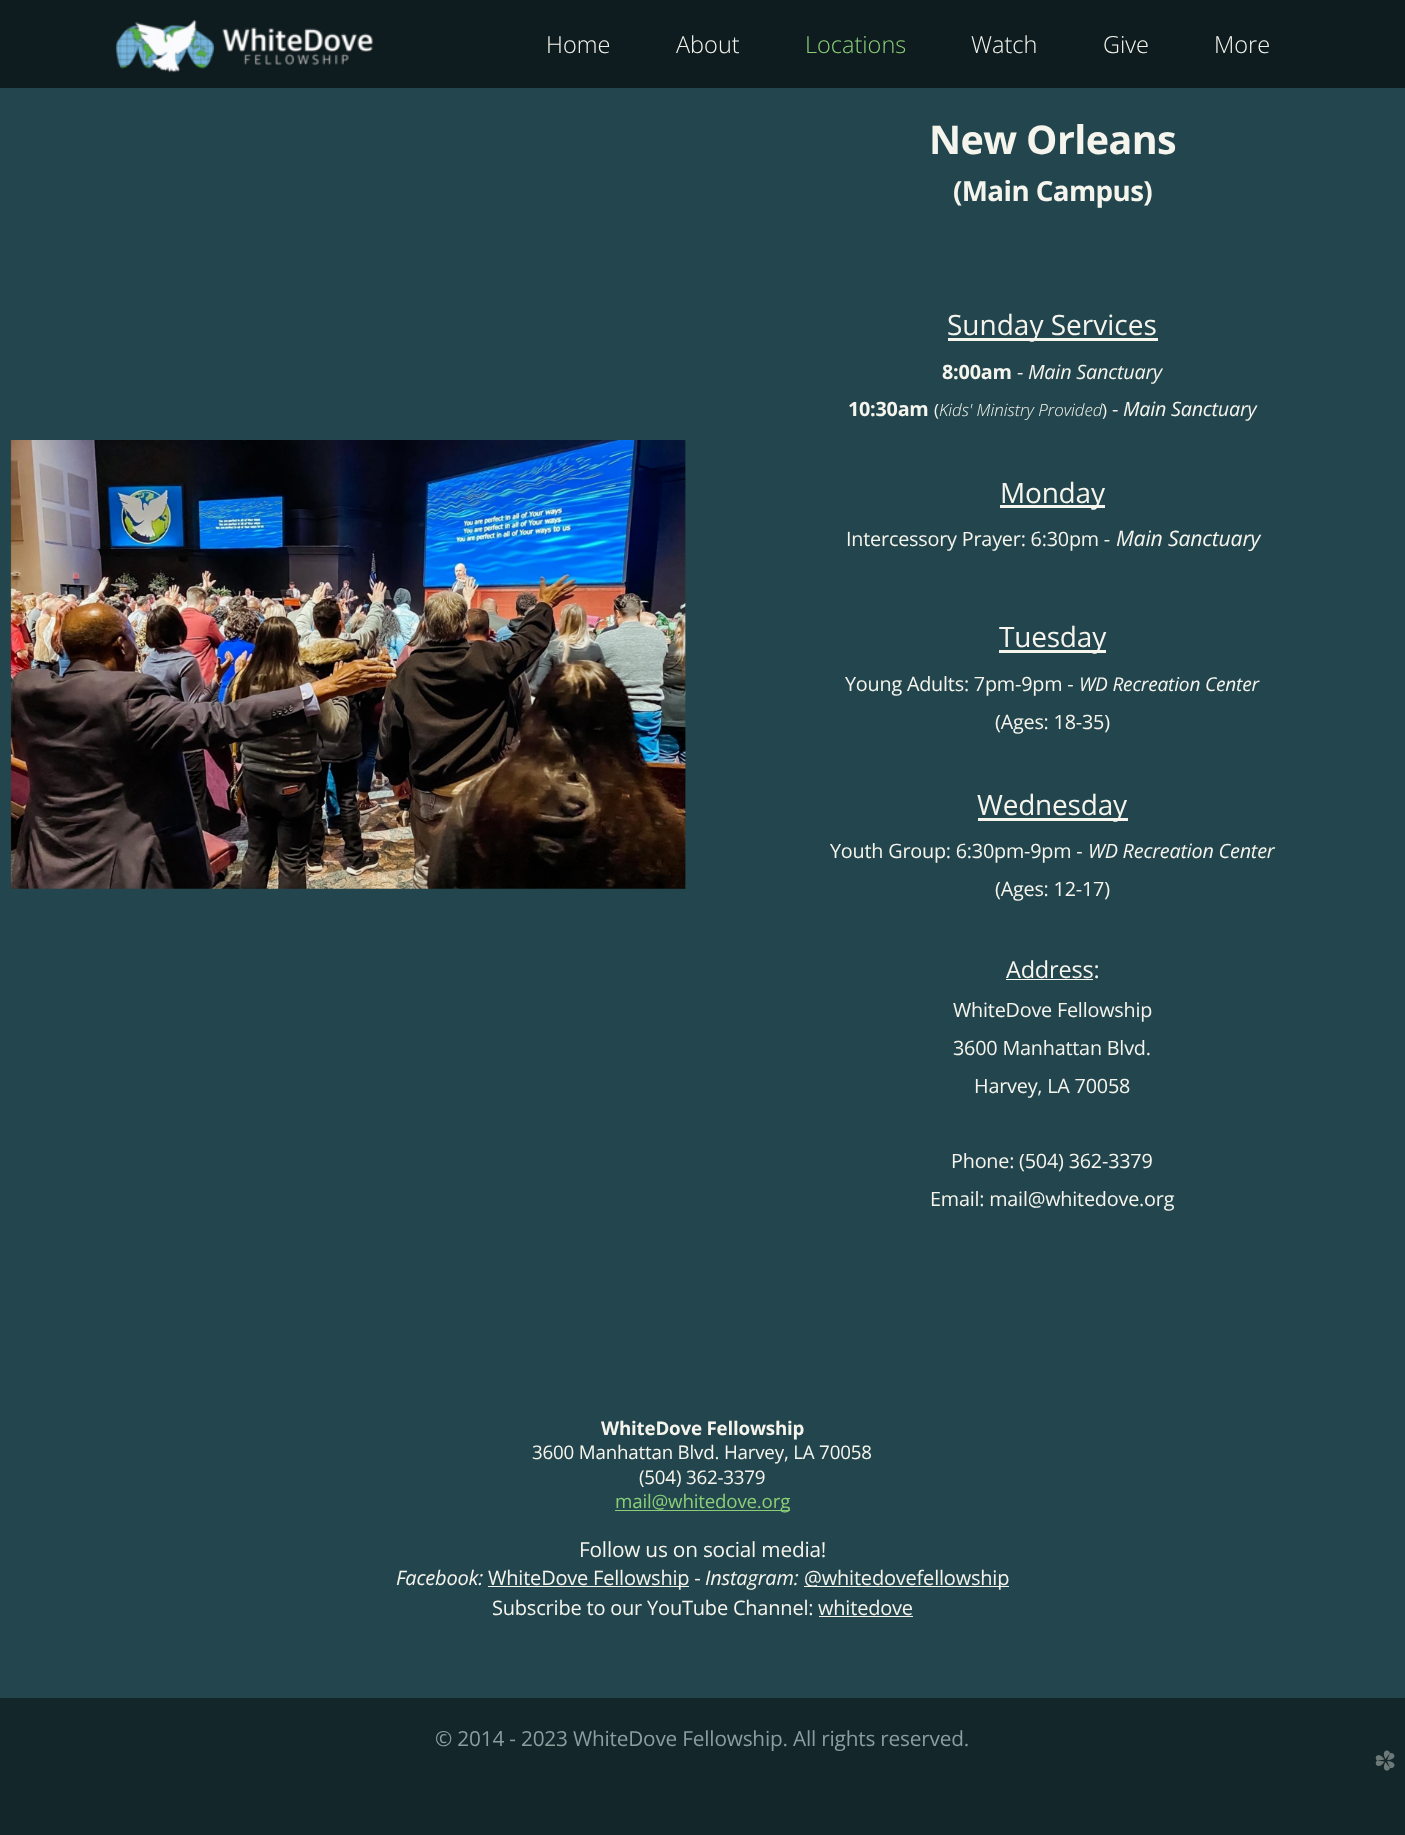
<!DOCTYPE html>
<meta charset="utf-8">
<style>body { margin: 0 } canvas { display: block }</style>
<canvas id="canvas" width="1405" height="1835"></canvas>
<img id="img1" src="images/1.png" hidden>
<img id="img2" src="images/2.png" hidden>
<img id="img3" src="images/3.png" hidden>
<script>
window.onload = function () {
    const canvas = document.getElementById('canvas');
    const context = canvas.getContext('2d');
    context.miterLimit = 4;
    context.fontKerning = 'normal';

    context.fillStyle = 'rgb(19, 38, 42)';
    context.fillRect(0, 0, 1405, 1835);
    context.fillStyle = 'rgb(14, 28, 31)';
    context.fillRect(0, 0, 1405, 88);
    context.drawImage(document.getElementById('img1'), 115, 19, 258, 54);
    context.fillStyle = 'rgb(35, 69, 77)';
    context.fillRect(0, 88, 1405, 1610);
    context.drawImage(document.getElementById('img2'), 10, 440, 676, 449);
    context.fillStyle = 'rgb(245, 245, 237)';
    context.fillRect(948, 338, 210, 3);
    context.fillRect(1000, 505, 105, 3);
    context.fillRect(999, 650, 107, 3);
    context.fillRect(978, 818, 150, 3);
    context.fillRect(1006, 979, 87, 1);
    context.fillStyle = 'rgb(138, 207, 120)';
    context.fillRect(615, 1510, 175, 1);
    context.fillStyle = 'rgb(245, 245, 237)';
    context.fillRect(488, 1586, 201, 1);
    context.fillRect(804, 1586, 205, 1);
    context.fillRect(819, 1616, 94, 1);
    context.drawImage(document.getElementById('img3'), 1375, 1750, 20, 21);
    context.font = '300 23.5px Open Sans';
    context.fillText('Home', 546, 53);
    context.fillText('About', 676, 53);
    context.fillStyle = 'rgb(138, 207, 120)';
    context.fillText('Locations', 805, 53);
    context.fillStyle = 'rgb(245, 245, 237)';
    context.fillText('Watch', 971, 53);
    context.fillText('Give', 1103, 53);
    context.fillText('More', 1214, 53);
    context.letterSpacing = '-0.6px';
    context.font = 'bold 39.5px Open Sans';
    context.fillText('New Orleans', 929, 154);
    context.font = 'bold 27.75px Open Sans';
    context.fillText('(Main Campus)', 953, 201);
    context.letterSpacing = '0px';
    context.font = '28px Open Sans';
    context.fillText('Sunday Services', 947, 335);
    context.letterSpacing = '-0.2px';
    context.font = 'bold 19.8px Open Sans';
    context.fillText('8:00am', 942, 379);
    context.font = '19.8px Open Sans';
    context.fillText('-', 1017, 379);
    context.font = 'italic 19.8px Open Sans';
    context.fillText('Main Sanctuary', 1028, 379);
    context.letterSpacing = '-0.25px';
    context.font = 'bold 19.8px Open Sans';
    context.fillText('10:30am', 848, 416);
    context.font = '16.9px Open Sans';
    context.fillText('(', 934, 416);
    context.letterSpacing = '0px';
    context.font = 'italic 300 16.9px Open Sans';
    context.fillText('Kids\' Ministry Provided', 939, 416);
    context.letterSpacing = '-0.25px';
    context.font = '16.9px Open Sans';
    context.fillText(')', 1102, 416);
    context.font = '19.8px Open Sans';
    context.fillText('-', 1112, 416);
    context.font = 'italic 19.8px Open Sans';
    context.fillText('Main Sanctuary', 1123, 416);
    context.letterSpacing = '-0.2px';
    context.font = '28px Open Sans';
    context.fillText('Monday', 1000, 503);
    context.font = '19.8px Open Sans';
    context.fillText('Intercessory Prayer: 6:30pm -', 846, 546);
    context.font = 'italic 21.25px Open Sans';
    context.fillText('Main Sanctuary', 1116, 546);
    context.font = '28px Open Sans';
    context.fillText('Tuesday', 999, 647);
    context.font = '19.8px Open Sans';
    context.fillText('Young Adults: 7pm-9pm -', 845, 691);
    context.font = 'italic 19.1px Open Sans';
    context.fillText('WD Recreation Center', 1079, 691);
    context.font = '19.8px Open Sans';
    context.fillText('(Ages: 18-35)', 995, 729);
    context.font = '28px Open Sans';
    context.fillText('Wednesday', 977, 815);
    context.font = '19.8px Open Sans';
    context.fillText('Youth Group: 6:30pm-9pm -', 830, 858);
    context.font = 'italic 19.8px Open Sans';
    context.fillText('WD Recreation Center', 1088, 858);
    context.font = '19.8px Open Sans';
    context.fillText('(Ages: 12-17)', 995, 896);
    context.font = '23.5px Open Sans';
    context.fillText('Address:', 1006, 978);
    context.font = '19.8px Open Sans';
    context.fillText('WhiteDove Fellowship', 953, 1017);
    context.fillText('3600 Manhattan Blvd.', 953, 1055);
    context.fillText('Harvey, LA 70058', 974, 1093);
    context.fillText('Phone: (504) 362-3379', 951, 1168);
    context.fillText('Email: mail@whitedove.org', 930, 1206);
    context.font = 'bold 18.75px Open Sans';
    context.fillText('WhiteDove Fellowship', 601, 1435);
    context.font = '18.75px Open Sans';
    context.fillText('3600 Manhattan Blvd. Harvey, LA 70058', 532, 1459);
    context.fillText('(504) 362-3379', 639, 1484);
    context.fillStyle = 'rgb(138, 207, 120)';
    context.fillText('mail@whitedove.org', 615, 1508);
    context.font = '20.8px Open Sans';
    context.fillStyle = 'rgb(245, 245, 237)';
    context.fillText('Follow us on social media!', 579, 1557);
    context.font = 'italic 20px Open Sans';
    context.fillText('Facebook:', 396, 1585);
    context.font = '20px Open Sans';
    context.fillText('WhiteDove Fellowship -', 488, 1585);
    context.font = 'italic 20px Open Sans';
    context.fillText('Instagram:', 705, 1585);
    context.font = '20px Open Sans';
    context.fillText('@whitedovefellowship', 804, 1585);
    context.fillText('Subscribe to our YouTube Channel:', 492, 1615);
    context.fillText('whitedove', 818, 1615);
    context.font = '20.8px Open Sans';
    context.fillStyle = 'rgb(140, 157, 157)';
    context.fillText('© 2014 - 2023 WhiteDove Fellowship. All rights reserved.', 435, 1746);
};
</script>
